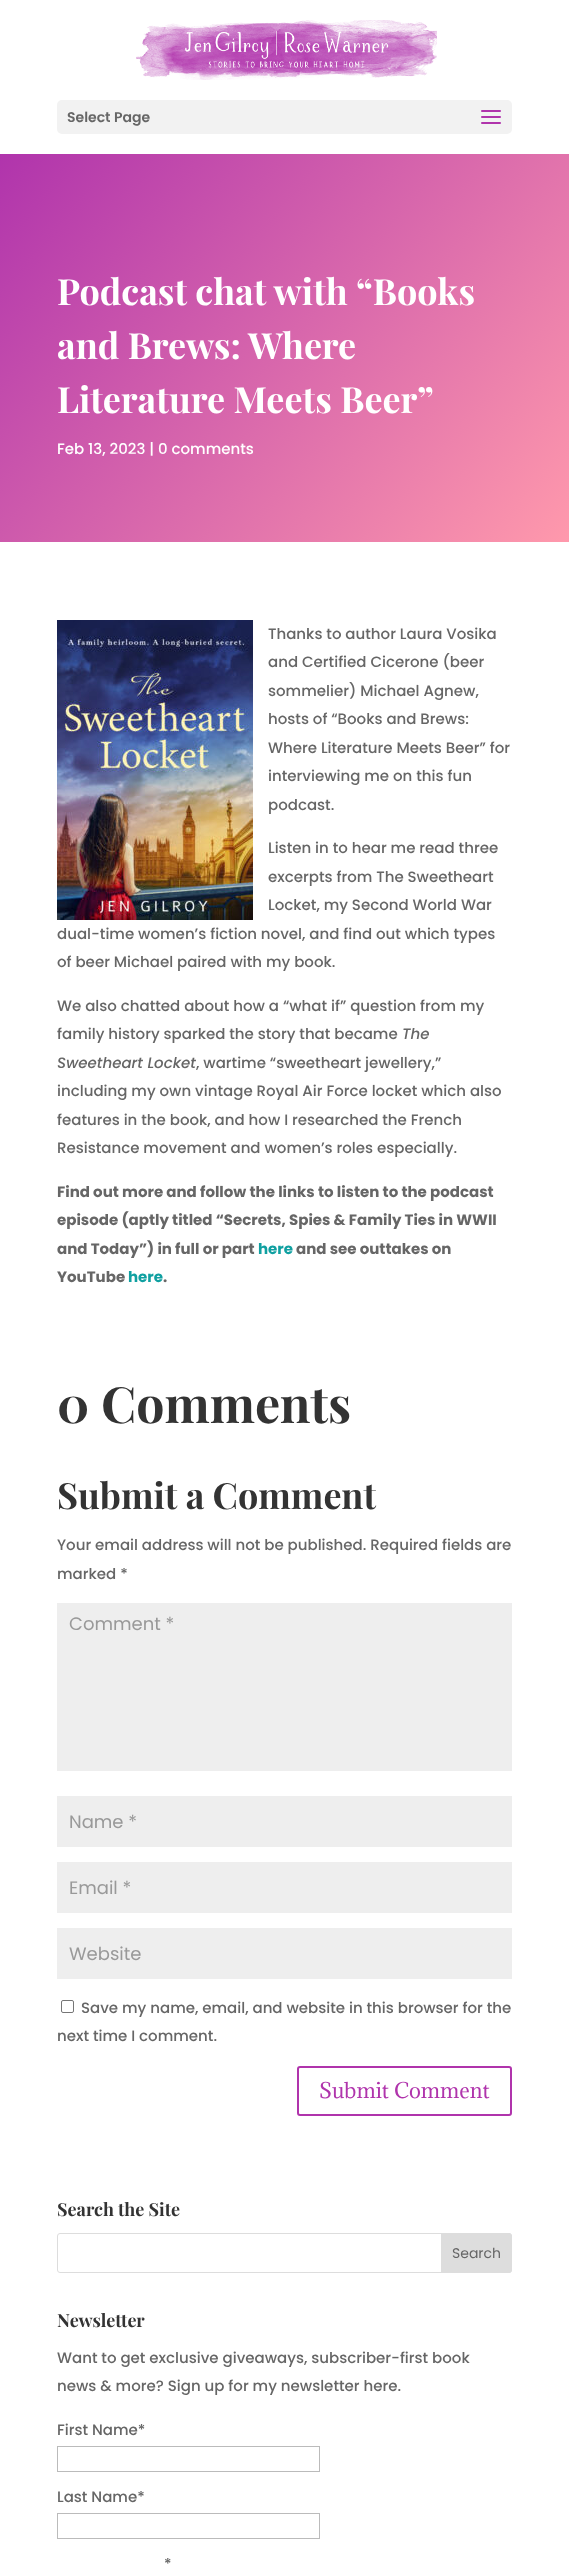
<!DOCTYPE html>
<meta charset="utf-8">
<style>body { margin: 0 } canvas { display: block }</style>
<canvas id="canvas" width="569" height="2564"></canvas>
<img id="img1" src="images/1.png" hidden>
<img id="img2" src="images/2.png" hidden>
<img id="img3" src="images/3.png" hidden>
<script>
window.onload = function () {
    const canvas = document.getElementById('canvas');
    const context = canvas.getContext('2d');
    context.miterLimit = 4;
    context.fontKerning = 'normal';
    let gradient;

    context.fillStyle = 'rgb(255, 255, 255)';
    context.fillRect(0, 0, 569, 2564);
    context.drawImage(document.getElementById('img1'), 136, 20, 301, 60);
    context.fillStyle = 'rgb(242, 242, 242)';
    context.beginPath();
    context.roundRect(57, 100, 455, 34, 5);
    context.fill();
    context.drawImage(document.getElementById('img2'), 481, 110, 20, 14);
    gradient = context.createLinearGradient(26, 123, 543, 572);
    gradient.addColorStop(0, 'rgb(176, 52, 172)');
    gradient.addColorStop(1, 'rgb(255, 153, 172)');
    context.fillStyle = gradient;
    context.fillRect(0, 154, 569, 388);
    context.drawImage(document.getElementById('img3'), 57, 620, 196, 300);
    context.fillStyle = 'rgb(238, 238, 238)';
    context.fillRect(57, 1603, 455, 168);
    context.fillRect(57, 1796, 455, 51);
    context.fillRect(57, 1862, 455, 51);
    context.fillRect(57, 1928, 455, 51);
    context.beginPath();
    context.roundRect(61.5, 2000.5, 12, 12, 1.5);
    context.strokeStyle = 'rgb(118, 118, 118)';
    context.stroke();
    context.beginPath();
    context.roundRect(298, 2067, 213, 48, 2);
    context.strokeStyle = 'rgb(176, 52, 172)';
    context.lineWidth = 2;
    context.stroke();
    context.beginPath();
    context.roundRect(57.5, 2233.5, 454, 39, 2.5);
    context.strokeStyle = 'rgb(221, 221, 221)';
    context.lineWidth = 1;
    context.stroke();
    context.fillStyle = 'rgb(221, 221, 221)';
    context.beginPath();
    context.roundRect(441.5, 2233.5, 70, 39, [0, 2.5, 2.5, 0]);
    context.fill();
    context.stroke();
    context.strokeStyle = 'rgb(187, 187, 187)';
    context.strokeRect(57.5, 2446.5, 262, 25);
    context.strokeRect(57.5, 2513.5, 262, 25);
    context.font = '600 14px Poppins';
    context.fillStyle = 'rgb(102, 102, 102)';
    context.fillText('Select Page', 67, 122);
    context.font = 'bold 36px Playfair Display';
    context.fillStyle = 'rgb(255, 255, 255)';
    context.fillText('Podcast chat with “Books', 57, 305);
    context.fillText('and Brews: Where', 57, 359);
    context.fillText('Literature Meets Beer”', 57, 413);
    context.font = '500 15px Poppins';
    context.fillText('Feb 13, 2023 | 0 comments', 57, 454);
    context.fillStyle = 'rgb(102, 102, 102)';
    context.fillText('Thanks to author Laura Vosika', 268, 639);
    context.fillText('and Certified Cicerone (beer', 268, 667);
    context.fillText('sommelier) Michael Agnew,', 268, 696);
    context.fillText('hosts of “Books and Brews:', 268, 724);
    context.fillText('Where Literature Meets Beer” for', 268, 753);
    context.fillText('interviewing me on this fun', 268, 781);
    context.fillText('podcast.', 268, 810);
    context.fillText('Listen in to hear me read three', 268, 853);
    context.fillText('excerpts from The Sweetheart', 268, 882);
    context.fillText('Locket, my Second World War', 268, 910);
    context.fillText('dual-time women’s fiction novel, and find out which types', 57, 939);
    context.fillText('of beer Michael paired with my book.', 57, 967);
    context.fillText('We also chatted about how a “what if” question from my', 57, 1011);
    context.fillText('family history sparked the story that became', 57, 1039);
    context.font = 'italic 500 15px Poppins';
    context.fillText('The', 402, 1039);
    context.fillText('Sweetheart Locket', 57, 1068);
    context.font = '500 15px Poppins';
    context.fillText(', wartime “sweetheart jewellery,”', 196, 1068);
    context.fillText('including my own vintage Royal Air Force locket which also', 57, 1096);
    context.fillText('features in the book, and how I researched the French', 57, 1125);
    context.fillText('Resistance movement and women’s roles especially.', 57, 1153);
    context.font = 'bold 15px Poppins';
    context.fillText('Find out more and follow the links to listen to the podcast', 57, 1197);
    context.fillText('episode (aptly titled “Secrets, Spies & Family Ties in WWII', 57, 1225);
    context.fillText('and Today”) in full or part', 57, 1254);
    context.fillStyle = 'rgb(16, 160, 161)';
    context.fillText('here', 258, 1254);
    context.fillStyle = 'rgb(102, 102, 102)';
    context.fillText('and see outtakes on', 296, 1254);
    context.fillText('YouTube', 57, 1282);
    context.fillStyle = 'rgb(16, 160, 161)';
    context.fillText('here', 128, 1282);
    context.fillStyle = 'rgb(102, 102, 102)';
    context.fillText('.', 163, 1282);
    context.font = 'bold 50px Playfair Display';
    context.fillStyle = 'rgb(51, 51, 51)';
    context.fillText('0 Comments', 57, 1423);
    context.font = 'bold 36px Playfair Display';
    context.fillText('Submit a Comment', 57, 1509);
    context.font = '500 15px Poppins';
    context.fillStyle = 'rgb(102, 102, 102)';
    context.fillText('Your email address will not be published. Required fields are', 57, 1550);
    context.fillText('marked *', 57, 1579);
    context.font = '18px Poppins';
    context.fillStyle = 'rgb(153, 153, 153)';
    context.fillText('Comment *', 69, 1630);
    context.fillText('Name *', 69, 1828);
    context.fillText('Email *', 69, 1894);
    context.fillText('Website', 69, 1960);
    context.font = '500 15px Poppins';
    context.fillStyle = 'rgb(102, 102, 102)';
    context.fillText('Save my name, email, and website in this browser for the', 81, 2013);
    context.fillText('next time I comment.', 57, 2041);
    context.font = '20px Adamina';
    context.fillStyle = 'rgb(176, 52, 172)';
    context.fillText('Submit Comment', 319, 2098);
    context.font = 'bold 18px Playfair Display';
    context.fillStyle = 'rgb(51, 51, 51)';
    context.fillText('Search the Site', 57, 2216);
    context.font = '14px Poppins';
    context.fillStyle = 'rgb(102, 102, 102)';
    context.fillText('Search', 452, 2258);
    context.font = 'bold 18px Playfair Display';
    context.fillStyle = 'rgb(51, 51, 51)';
    context.fillText('Newsletter', 57, 2327);
    context.font = '500 15px Poppins';
    context.fillStyle = 'rgb(102, 102, 102)';
    context.fillText('Want to get exclusive giveaways, subscriber-first book', 57, 2363);
    context.fillText('news & more? Sign up for my newsletter here.', 57, 2391);
    context.fillText('First Name*', 57, 2435);
    context.fillText('Last Name*', 57, 2502);
    context.fillText('*', 164, 2569);
};
</script>
